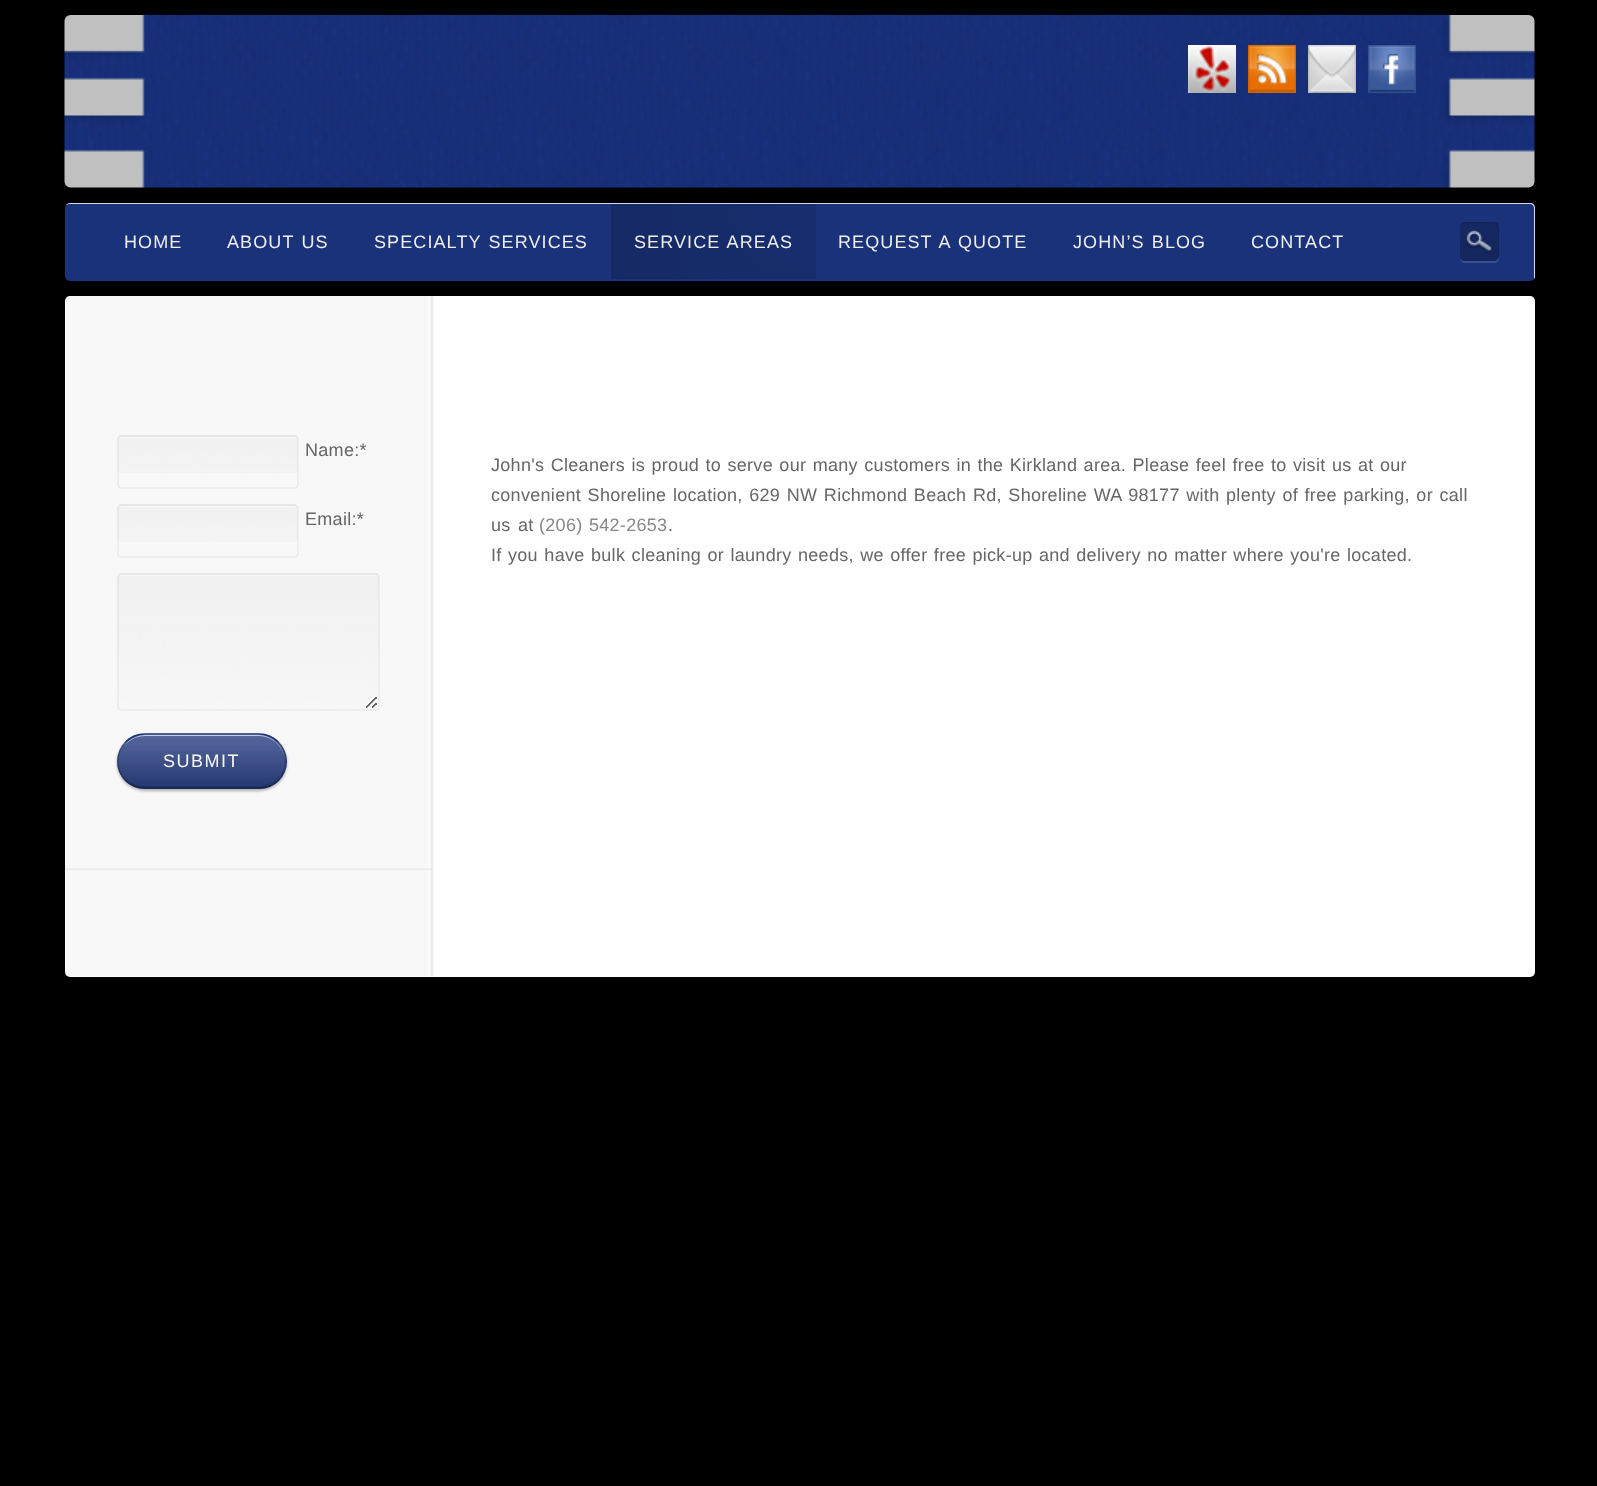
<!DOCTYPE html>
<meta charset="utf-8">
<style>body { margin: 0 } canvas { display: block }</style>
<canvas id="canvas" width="1597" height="1486"></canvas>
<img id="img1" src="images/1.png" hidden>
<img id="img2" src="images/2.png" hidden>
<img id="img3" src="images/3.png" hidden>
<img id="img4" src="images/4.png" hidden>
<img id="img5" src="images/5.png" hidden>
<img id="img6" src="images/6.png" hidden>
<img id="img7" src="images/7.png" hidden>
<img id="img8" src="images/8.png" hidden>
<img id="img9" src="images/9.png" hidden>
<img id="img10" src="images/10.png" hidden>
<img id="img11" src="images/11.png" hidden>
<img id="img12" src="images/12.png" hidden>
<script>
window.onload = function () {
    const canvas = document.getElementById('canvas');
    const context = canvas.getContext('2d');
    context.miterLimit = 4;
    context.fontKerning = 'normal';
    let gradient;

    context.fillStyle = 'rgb(0, 0, 0)';
    context.fillRect(0, 0, 1597, 1486);
    context.drawImage(document.getElementById('img1'), 64, 15, 1471, 173);
    context.drawImage(document.getElementById('img2'), 1188, 45, 48, 48);
    context.drawImage(document.getElementById('img3'), 1248, 45, 48, 48);
    context.drawImage(document.getElementById('img4'), 1308, 45, 48, 48);
    context.drawImage(document.getElementById('img5'), 1368, 45, 48, 48);
    context.fillStyle = 'rgb(26, 50, 122)';
    context.beginPath();
    context.roundRect(65, 203, 1470, 78, 5);
    context.fill();
    context.fillStyle = 'rgba(255, 255, 255, 0.81)';
    context.beginPath();
    context.moveTo(69, 204);
    context.lineTo(1530, 204);
    context.bezierCurveTo(1532, 204, 1534, 206, 1534, 208);
    context.lineTo(1534, 279);
    context.bezierCurveTo(1535, 278, 1535, 277, 1535, 276);
    context.lineTo(1535, 208);
    context.bezierCurveTo(1535, 205, 1533, 203, 1530, 203);
    context.lineTo(70, 203);
    context.bezierCurveTo(68, 203, 67, 204, 66, 205);
    context.closePath();
    context.fill();
    gradient = context.createRadialGradient(816, 204, 0, 816, 204, 900);
    gradient.addColorStop(0, 'rgb(23, 45, 110)');
    gradient.addColorStop(1, 'rgb(16, 30, 73)');
    context.fillStyle = gradient;
    context.fillRect(611, 204, 205, 75);
    context.fillStyle = 'rgb(58, 79, 141)';
    context.beginPath();
    context.moveTo(1460, 258.5);
    context.bezierCurveTo(1460.5, 261, 1462.5, 263, 1465, 263);
    context.lineTo(1494, 263);
    context.bezierCurveTo(1497, 263, 1499, 261, 1499, 258);
    context.lineTo(1499, 229);
    context.lineTo(1498.5, 227);
    context.lineTo(1498.5, 256.5);
    context.bezierCurveTo(1498.5, 259, 1496.5, 261, 1494, 261);
    context.lineTo(1464, 261);
    context.bezierCurveTo(1462.5, 261, 1461, 260, 1460, 258.5);
    context.closePath();
    context.fill();
    context.fillStyle = 'rgb(26, 50, 122)';
    context.beginPath();
    context.roundRect(1460, 222, 39, 39, 5);
    context.fill();
    gradient = context.createLinearGradient(1479, 222, 1479, 261);
    gradient.addColorStop(0, 'rgba(0, 0, 0, 0.2)');
    gradient.addColorStop(1, 'rgba(0, 0, 0, 0.24)');
    context.fillStyle = gradient;
    context.beginPath();
    context.roundRect(1460, 222, 39, 39, 5);
    context.fill();
    context.fillStyle = 'rgba(0, 0, 0, 0.1)';
    context.beginPath();
    context.moveTo(1464, 224);
    context.lineTo(1494, 224);
    context.bezierCurveTo(1496, 224, 1498, 226, 1498, 228);
    context.lineTo(1498, 258);
    context.lineTo(1497.5, 259.5);
    context.bezierCurveTo(1499.5, 257, 1499, 253.5, 1499, 251);
    context.lineTo(1499, 241.5);
    context.bezierCurveTo(1499, 219.5, 1501.5, 222, 1479.5, 222);
    context.lineTo(1470, 222);
    context.bezierCurveTo(1464.5, 222, 1460, 221.5, 1460, 228);
    context.bezierCurveTo(1460, 226, 1462, 224, 1464, 224);
    context.closePath();
    context.fill();
    context.drawImage(document.getElementById('img6'), 1465, 230, 28, 24);
    context.fillStyle = 'rgb(255, 255, 255)';
    context.beginPath();
    context.roundRect(65, 296, 1470, 681, 5);
    context.fill();
    context.drawImage(document.getElementById('img7'), 65, 296, 369, 680);
    context.drawImage(document.getElementById('img8'), 64, 868, 368, 4);
    context.drawImage(document.getElementById('img9'), 117, 438, 181, 35);
    context.beginPath();
    context.moveTo(119, 437);
    context.bezierCurveTo(119.5, 436, 120.5, 436, 121.5, 436);
    context.lineTo(294, 436);
    context.bezierCurveTo(295, 436, 296, 436, 296.5, 437);
    context.strokeStyle = 'rgb(223, 223, 223)';
    context.lineWidth = 1.5;
    context.stroke();
    context.beginPath();
    context.moveTo(296.5, 437);
    context.bezierCurveTo(297.5, 437.5, 298, 438.5, 298, 439.5);
    context.lineTo(298, 484.5);
    context.bezierCurveTo(298, 485.5, 297.5, 486.5, 296.5, 487);
    context.bezierCurveTo(296, 488, 295, 488, 294, 488);
    context.lineTo(121.5, 488);
    context.bezierCurveTo(120.5, 488, 119.5, 488, 119, 487);
    context.bezierCurveTo(118, 486.5, 118, 485.5, 118, 484.5);
    context.lineTo(118, 439.5);
    context.bezierCurveTo(118, 438.5, 118, 437.5, 119, 437);
    context.strokeStyle = 'rgba(180, 180, 180, 0.2)';
    context.stroke();
    context.drawImage(document.getElementById('img10'), 117, 507, 181, 35);
    context.beginPath();
    context.moveTo(119, 506);
    context.bezierCurveTo(119.5, 505, 120.5, 505, 121.5, 505);
    context.lineTo(294, 505);
    context.bezierCurveTo(295, 505, 296, 505, 296.5, 506);
    context.strokeStyle = 'rgb(223, 223, 223)';
    context.stroke();
    context.beginPath();
    context.moveTo(296.5, 506);
    context.bezierCurveTo(297.5, 506.5, 298, 507.5, 298, 508.5);
    context.lineTo(298, 553.5);
    context.bezierCurveTo(298, 554.5, 297.5, 555.5, 296.5, 556);
    context.bezierCurveTo(296, 557, 295, 557, 294, 557);
    context.lineTo(121.5, 557);
    context.bezierCurveTo(120.5, 557, 119.5, 557, 119, 556);
    context.bezierCurveTo(118, 555.5, 118, 554.5, 118, 553.5);
    context.lineTo(118, 508.5);
    context.bezierCurveTo(118, 507.5, 118, 506.5, 119, 506);
    context.strokeStyle = 'rgba(180, 180, 180, 0.2)';
    context.stroke();
    context.drawImage(document.getElementById('img11'), 117, 576, 262, 132);
    context.beginPath();
    context.moveTo(119, 575);
    context.bezierCurveTo(119.5, 574, 120.5, 574, 121.5, 574);
    context.lineTo(375, 574);
    context.bezierCurveTo(376, 574, 377, 574, 377.5, 575);
    context.strokeStyle = 'rgb(223, 223, 223)';
    context.stroke();
    context.beginPath();
    context.moveTo(377.5, 575);
    context.bezierCurveTo(378.5, 575.5, 379, 576.5, 379, 577.5);
    context.lineTo(379, 706.5);
    context.bezierCurveTo(379, 707.5, 378.5, 708.5, 377.5, 709);
    context.bezierCurveTo(377, 710, 376, 710, 375, 710);
    context.lineTo(121.5, 710);
    context.bezierCurveTo(120.5, 710, 119.5, 710, 119, 709);
    context.bezierCurveTo(118, 708.5, 118, 707.5, 118, 706.5);
    context.lineTo(118, 577.5);
    context.bezierCurveTo(118, 576.5, 118, 575.5, 119, 575);
    context.strokeStyle = 'rgba(180, 180, 180, 0.2)';
    context.stroke();
    context.fillStyle = 'rgba(0, 0, 0, 0.3)';
    context.filter = 'blur(1.5px)';
    context.beginPath();
    context.roundRect(117, 735, 170, 56, 28);
    context.fill();
    context.filter = 'none';
    context.fillStyle = 'rgb(26, 50, 122)';
    context.beginPath();
    context.roundRect(117, 734, 170, 55, 27.5);
    context.fill();
    context.drawImage(document.getElementById('img12'), 117, 734, 170, 55);
    context.fillStyle = 'rgba(0, 0, 0, 0.1)';
    context.beginPath();
    context.moveTo(121, 772);
    context.bezierCurveTo(126, 780, 135, 786, 145, 786);
    context.lineTo(259, 786);
    context.bezierCurveTo(273, 786, 285, 774, 285, 761);
    context.lineTo(285, 762);
    context.bezierCurveTo(285, 776, 273, 788, 258, 788);
    context.lineTo(146, 788);
    context.bezierCurveTo(135, 788, 126, 782, 121, 772);
    context.closePath();
    context.fill();
    context.fillStyle = 'rgba(255, 255, 255, 0.6)';
    context.beginPath();
    context.moveTo(145, 736);
    context.lineTo(259, 736);
    context.bezierCurveTo(273, 736, 285, 748, 285, 762);
    context.bezierCurveTo(285, 747, 273, 735, 258, 735);
    context.lineTo(146, 735);
    context.bezierCurveTo(137, 735, 129, 739, 124, 746);
    context.bezierCurveTo(129, 740, 137, 736, 145, 736);
    context.closePath();
    context.fill();
    context.beginPath();
    context.moveTo(125.5, 742);
    context.bezierCurveTo(130.5, 737, 137.5, 734, 145, 734);
    context.lineTo(259, 734);
    context.bezierCurveTo(266, 734, 273, 737, 278, 742);
    context.strokeStyle = 'rgb(26, 50, 122)';
    context.stroke();
    context.beginPath();
    context.moveTo(278, 742);
    context.bezierCurveTo(288, 752.5, 288, 770, 278, 780.5);
    context.strokeStyle = 'rgba(0, 0, 0, 0.2)';
    context.stroke();
    context.beginPath();
    context.moveTo(278, 780.5);
    context.bezierCurveTo(273, 785.5, 266, 788, 259, 788);
    context.lineTo(145, 788);
    context.bezierCurveTo(137.5, 788, 130.5, 785.5, 125.5, 780.5);
    context.strokeStyle = 'rgba(0, 0, 0, 0.3)';
    context.stroke();
    context.beginPath();
    context.moveTo(125.5, 780.5);
    context.bezierCurveTo(115.5, 770, 115.5, 752.5, 125.5, 742);
    context.strokeStyle = 'rgba(0, 0, 0, 0.2)';
    context.stroke();
    context.letterSpacing = '1.1px';
    context.font = '18px Liberation Sans';
    context.fillStyle = 'rgb(238, 238, 238)';
    context.fillText('HOME', 124, 248);
    context.wordSpacing = '1.1px';
    context.fillText('ABOUT US', 227, 248);
    context.fillText('SPECIALTY SERVICES', 374, 248);
    context.fillText('SERVICE AREAS', 634, 248);
    context.fillText('REQUEST A QUOTE', 838, 248);
    context.fillText('JOHN’S BLOG', 1073, 248);
    context.wordSpacing = '0px';
    context.fillText('CONTACT', 1251, 248);
    context.letterSpacing = '0.3px';
    context.fillStyle = 'rgb(102, 102, 102)';
    context.fillText('Name:*', 305, 456);
    context.fillText('Email:*', 305, 525);
    context.letterSpacing = '1.5px';
    context.fillStyle = 'rgb(248, 248, 248)';
    context.fillText('SUBMIT', 163, 767);
    context.letterSpacing = '0.3px';
    context.wordSpacing = '1.1px';
    context.fillStyle = 'rgb(102, 102, 102)';
    context.fillText('John\'s Cleaners is proud to serve our many customers in the Kirkland area. Please feel free to visit us at our', 491, 471);
    context.wordSpacing = '1.25px';
    context.fillText('convenient Shoreline location, 629 NW Richmond Beach Rd, Shoreline WA 98177 with plenty of free parking, or call', 491, 501);
    context.wordSpacing = '2px';
    context.fillText('us at', 491, 531);
    context.wordSpacing = '1.1px';
    context.fillStyle = 'rgb(136, 136, 136)';
    context.fillText('(206) 542-2653', 539, 531);
    context.wordSpacing = '0px';
    context.fillStyle = 'rgb(102, 102, 102)';
    context.fillText('.', 668, 531);
    context.wordSpacing = '1.1px';
    context.fillText('If you have bulk cleaning or laundry needs, we offer free pick-up and delivery no matter where you\'re located.', 491, 561);
};
</script>
